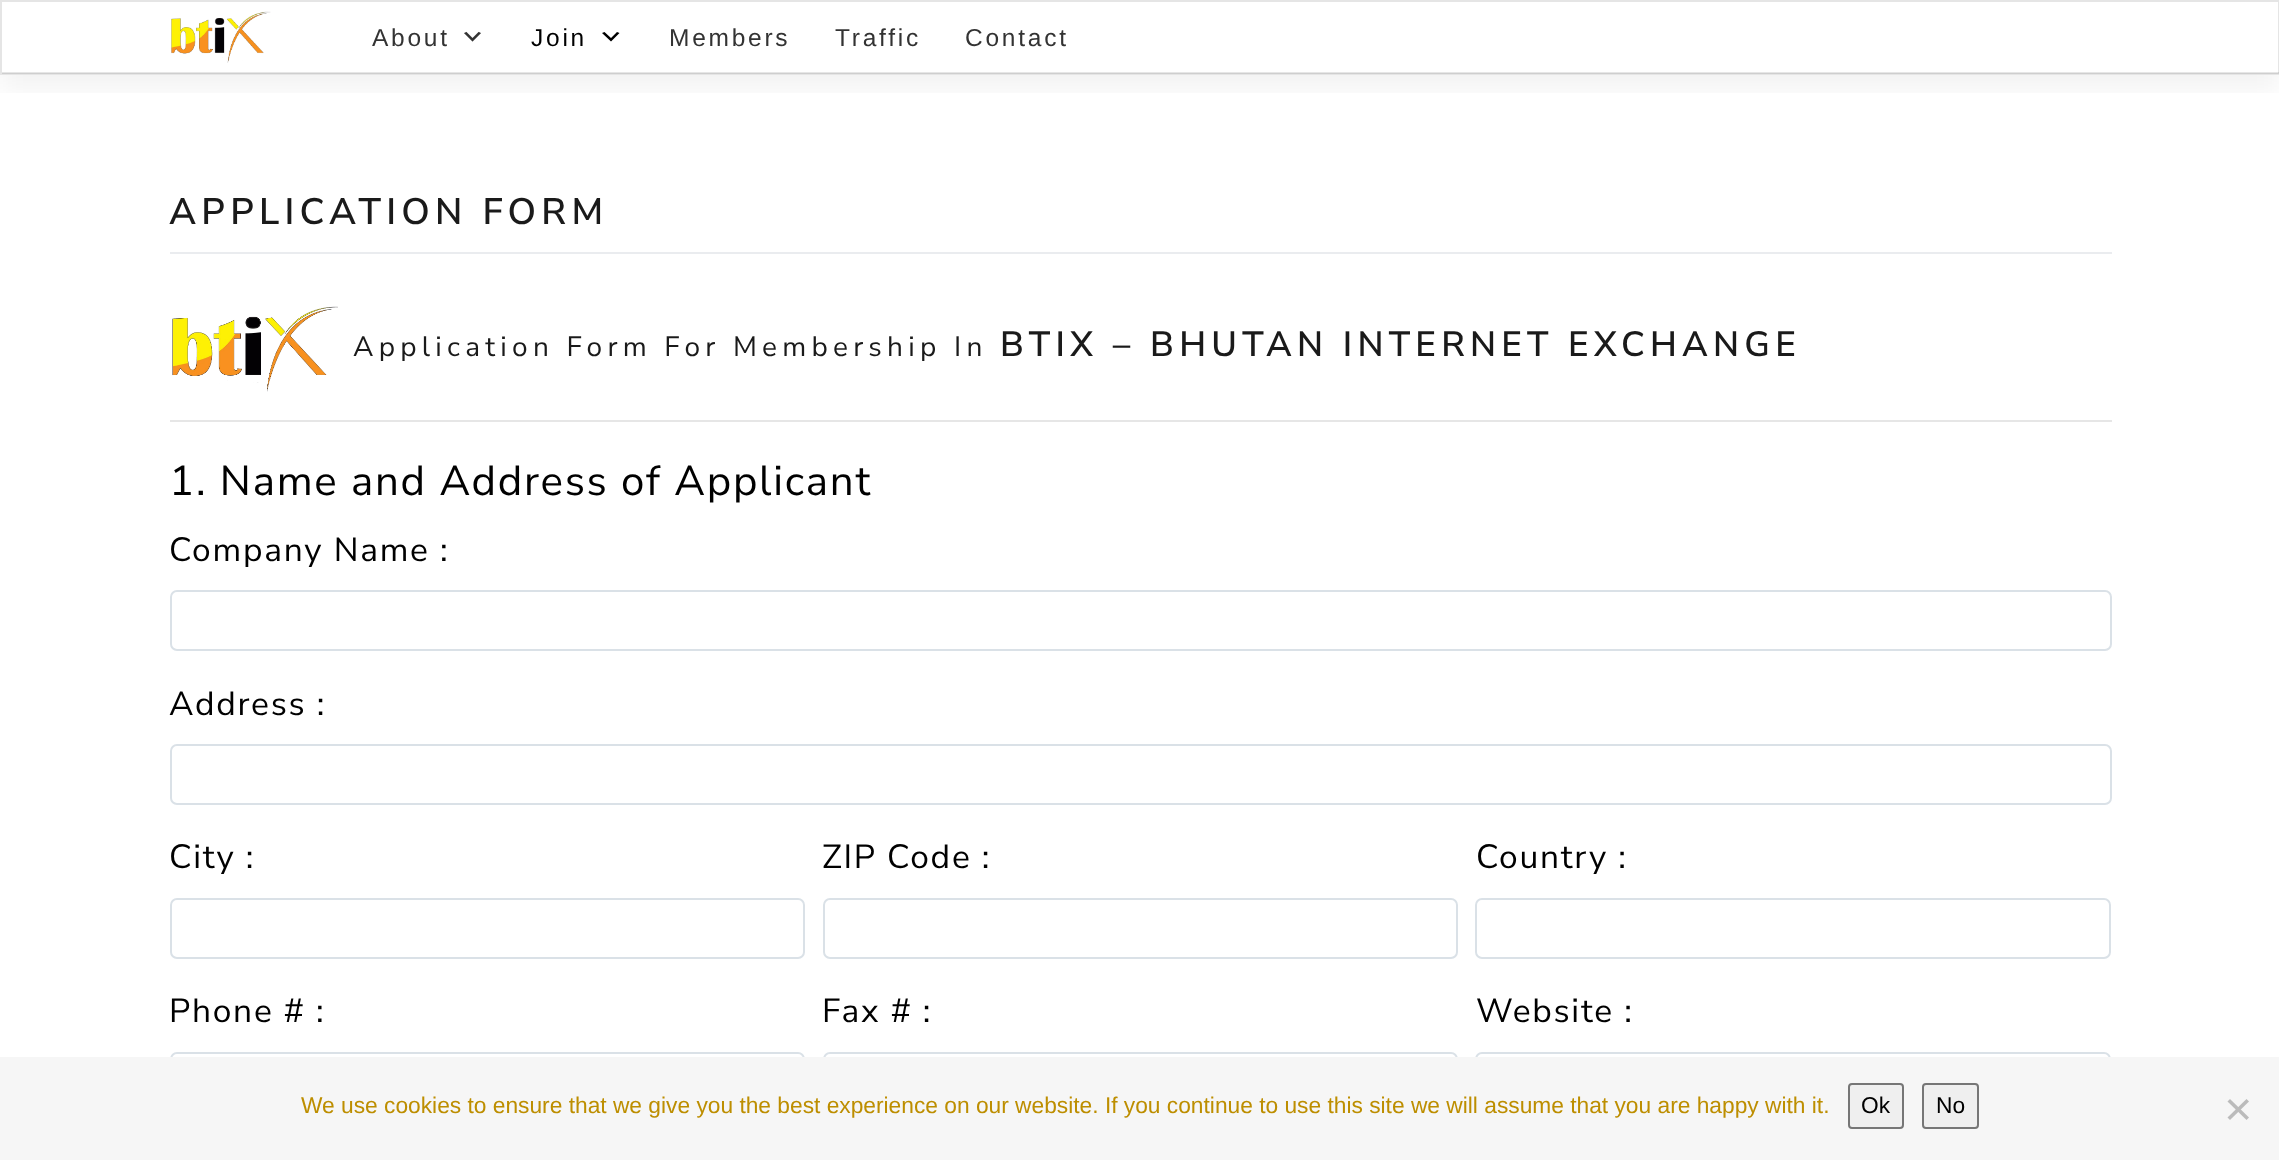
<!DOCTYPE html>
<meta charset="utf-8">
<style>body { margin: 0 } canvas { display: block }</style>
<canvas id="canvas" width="2279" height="1160"></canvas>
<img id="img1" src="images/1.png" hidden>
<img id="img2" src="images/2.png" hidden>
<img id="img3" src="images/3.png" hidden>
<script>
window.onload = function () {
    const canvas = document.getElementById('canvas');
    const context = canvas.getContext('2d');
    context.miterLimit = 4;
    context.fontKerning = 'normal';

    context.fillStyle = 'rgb(255, 255, 255)';
    context.fillRect(0, 0, 2279, 1160);
    context.save();
    context.beginPath();
    context.rect(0, 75, 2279, 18);
    context.clip();
    context.fillStyle = 'rgba(0, 0, 0, 0.05)';
    context.filter = 'blur(14px)';
    context.beginPath();
    context.rect(0, 14, 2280, 75);
    context.fill();
    context.filter = 'none';
    context.restore();
    context.fillStyle = 'rgb(230, 230, 230)';
    context.fillRect(2, 72, 2277, 2);
    context.strokeStyle = 'rgba(0, 0, 0, 0.1)';
    context.lineWidth = 2;
    context.strokeRect(1, 1, 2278, 73);
    context.drawImage(document.getElementById('img1'), 171, 11, 100, 52);
    context.drawImage(document.getElementById('img2'), 464, 31, 17, 11);
    context.fillStyle = 'rgb(0, 0, 0)';
    context.beginPath();
    context.moveTo(604.5, 32);
    context.lineTo(611, 38);
    context.lineTo(617, 32);
    context.lineTo(619.5, 33);
    context.lineTo(611, 41.5);
    context.lineTo(602, 33);
    context.closePath();
    context.fill();
    context.fillStyle = 'rgb(234, 236, 239)';
    context.fillRect(170, 252, 1942, 2);
    context.drawImage(document.getElementById('img3'), 172, 306, 166, 86);
    context.fillStyle = 'rgb(230, 230, 230)';
    context.fillRect(170, 420, 1942, 2);
    context.beginPath();
    context.roundRect(171, 591, 1940, 59, 6);
    context.strokeStyle = 'rgb(218, 225, 231)';
    context.stroke();
    context.beginPath();
    context.roundRect(171, 745, 1940, 59, 6);
    context.stroke();
    context.beginPath();
    context.roundRect(171, 899, 633, 59, 6);
    context.stroke();
    context.beginPath();
    context.roundRect(824, 899, 633, 59, 6);
    context.stroke();
    context.beginPath();
    context.roundRect(1476, 899, 634, 59, 6);
    context.stroke();
    context.beginPath();
    context.roundRect(171, 1053, 633, 59, 6);
    context.stroke();
    context.beginPath();
    context.roundRect(824, 1053, 633, 59, 6);
    context.stroke();
    context.beginPath();
    context.roundRect(1476, 1053, 634, 59, 6);
    context.stroke();
    context.fillStyle = 'rgb(246, 246, 246)';
    context.fillRect(0, 1057, 2279, 103);
    context.fillStyle = 'rgb(239, 239, 239)';
    context.beginPath();
    context.roundRect(1849, 1084, 54, 44, 3);
    context.fill();
    context.strokeStyle = 'rgb(118, 118, 118)';
    context.stroke();
    context.beginPath();
    context.roundRect(1923, 1084, 55, 44, 3);
    context.fill();
    context.stroke();
    context.fillStyle = 'rgb(187, 187, 187)';
    context.beginPath();
    context.moveTo(2246.5, 1099);
    context.lineTo(2249, 1101.5);
    context.lineTo(2230, 1120);
    context.lineTo(2227.5, 1117.5);
    context.closePath();
    context.fill();
    context.beginPath();
    context.moveTo(2227.5, 1101.5);
    context.lineTo(2230, 1099);
    context.lineTo(2249, 1117.5);
    context.lineTo(2246.5, 1120);
    context.closePath();
    context.fill();
    context.letterSpacing = '2.75px';
    context.font = '24.5px Liberation Sans';
    context.fillStyle = 'rgb(51, 51, 51)';
    context.fillText('About', 372, 46);
    context.fillStyle = 'rgb(0, 0, 0)';
    context.fillText('Join', 531, 46);
    context.fillStyle = 'rgb(51, 51, 51)';
    context.fillText('Members', 669, 46);
    context.fillText('Traffic', 835, 46);
    context.fillText('Contact', 965, 46);
    context.letterSpacing = '5.25px';
    context.font = '600 36.75px Nunito Sans';
    context.fillStyle = 'rgb(26, 26, 26)';
    context.fillText('APPLICATION FORM', 169, 224);
    context.font = '28px Nunito Sans';
    context.fillText('Application Form For Membership In', 353, 356);
    context.font = '600 35px Nunito Sans';
    context.fillText('BTIX – BHUTAN INTERNET EXCHANGE', 1000, 356);
    context.letterSpacing = '1.75px';
    context.font = '42px Nunito Sans';
    context.fillStyle = 'rgb(0, 0, 0)';
    context.fillText('1. Name and Address of Applicant', 169, 495);
    context.font = '33.5px Nunito Sans';
    context.fillText('Company Name :', 169, 561);
    context.fillText('Address :', 169, 715);
    context.fillText('City :', 169, 868);
    context.fillText('ZIP Code :', 822, 868);
    context.fillText('Country :', 1476, 868);
    context.fillText('Phone # :', 169, 1022);
    context.fillText('Fax # :', 822, 1022);
    context.fillText('Website :', 1476, 1022);
    context.letterSpacing = '0px';
    context.font = '22.75px Liberation Sans';
    context.fillStyle = 'rgb(189, 142, 0)';
    context.fillText('We use cookies to ensure that we give you the best experience on our website. If you continue to use this site we will assume that you are happy with it.', 301, 1113);
    context.fillStyle = 'rgb(0, 0, 0)';
    context.fillText('Ok', 1861, 1113);
    context.fillText('No', 1936, 1113);
};
</script>
